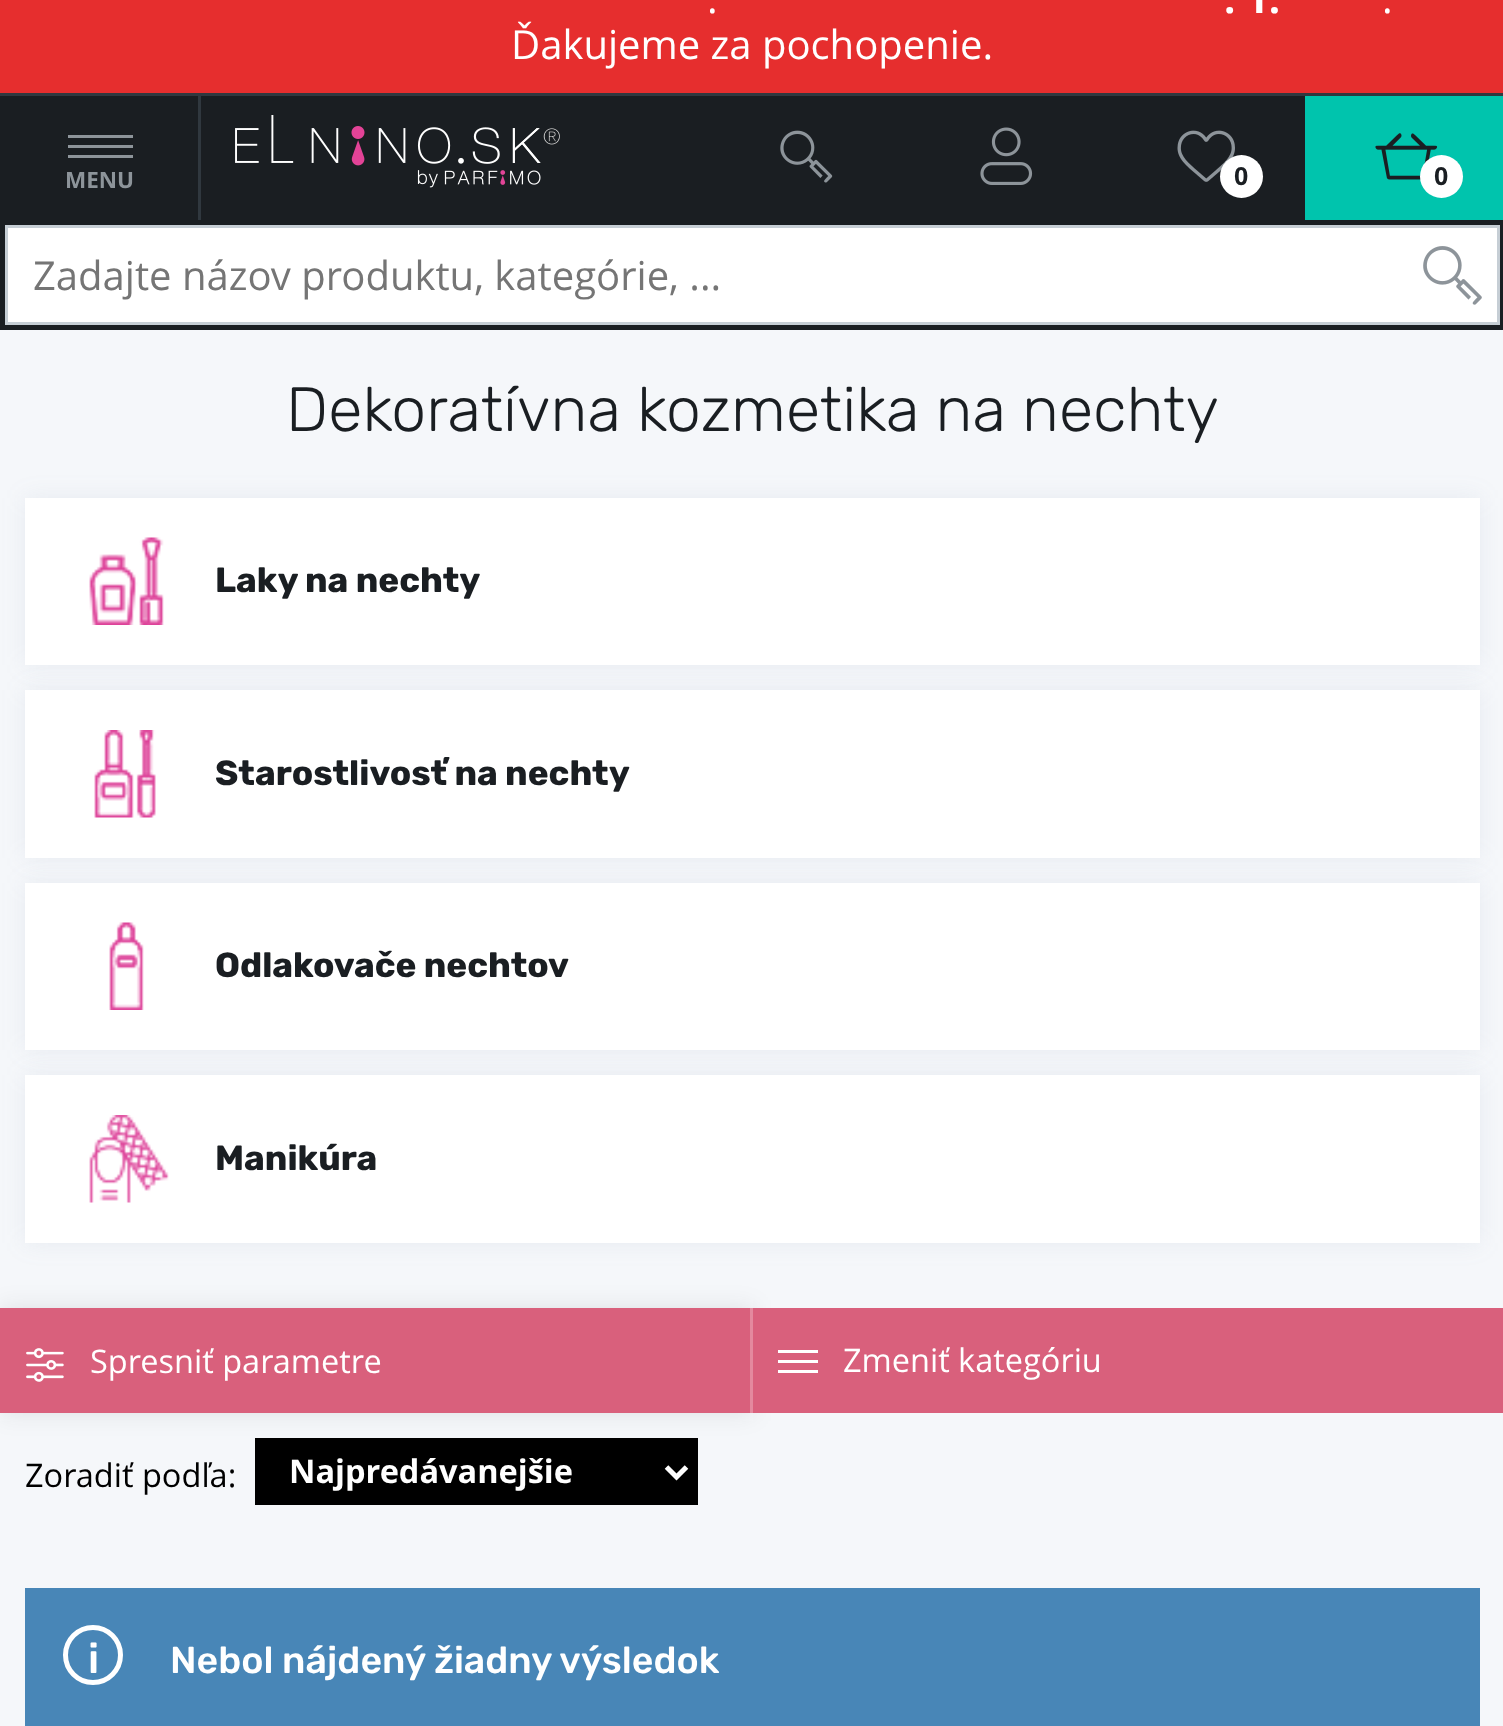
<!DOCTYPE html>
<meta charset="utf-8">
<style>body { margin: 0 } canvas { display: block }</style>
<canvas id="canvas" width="1503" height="1726"></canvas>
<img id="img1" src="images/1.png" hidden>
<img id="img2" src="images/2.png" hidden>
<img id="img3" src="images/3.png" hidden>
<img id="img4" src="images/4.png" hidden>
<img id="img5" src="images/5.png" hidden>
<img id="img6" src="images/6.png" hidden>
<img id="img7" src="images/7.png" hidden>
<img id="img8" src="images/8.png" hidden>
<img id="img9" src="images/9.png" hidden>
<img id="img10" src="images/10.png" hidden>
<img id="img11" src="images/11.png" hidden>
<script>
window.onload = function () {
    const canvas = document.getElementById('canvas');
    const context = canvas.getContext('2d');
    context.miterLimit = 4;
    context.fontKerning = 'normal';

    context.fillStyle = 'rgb(245, 247, 250)';
    context.fillRect(0, 0, 1503, 1726);
    context.fillStyle = 'rgb(230, 46, 46)';
    context.fillRect(0, 0, 1503, 93);
    context.fillStyle = 'rgb(26, 30, 34)';
    context.fillRect(0, 96, 1503, 234);
    context.fillStyle = 'rgb(48, 56, 63)';
    context.fillRect(0, 93, 1503, 3);
    context.fillRect(198, 95, 3, 125);
    context.fillStyle = 'rgb(141, 148, 154)';
    context.fillRect(68, 145, 65, 3);
    context.fillRect(68, 135, 65, 3);
    context.fillRect(68, 155, 65, 3);
    context.drawImage(document.getElementById('img1'), 235, 115, 325, 73);
    context.drawImage(document.getElementById('img2'), 780, 130, 53, 53);
    context.drawImage(document.getElementById('img3'), 980, 127, 53, 58);
    context.drawImage(document.getElementById('img4'), 1177, 130, 58, 52);
    context.fillStyle = 'rgb(255, 255, 255)';
    context.beginPath();
    context.arc(1241.5, 176.5, 21.5, 0, 2 * Math.PI);
    context.fill();
    context.fillStyle = 'rgb(0, 196, 173)';
    context.fillRect(1305, 96, 198, 124);
    context.drawImage(document.getElementById('img5'), 1375, 133, 63, 47);
    context.fillStyle = 'rgb(255, 255, 255)';
    context.beginPath();
    context.arc(1441.5, 176.5, 21.5, 0, 2 * Math.PI);
    context.fill();
    context.beginPath();
    context.rect(6.5, 226.5, 1492, 97);
    context.fill();
    context.strokeStyle = 'rgb(198, 206, 213)';
    context.lineWidth = 3;
    context.stroke();
    context.drawImage(document.getElementById('img6'), 1423, 246, 59, 59);
    context.fillStyle = 'rgba(112, 126, 161, 0.1)';
    context.filter = 'blur(12.5px)';
    context.beginPath();
    context.rect(25, 498, 1455, 167);
    context.fill();
    context.filter = 'none';
    context.fillStyle = 'rgb(255, 255, 255)';
    context.fillRect(25, 498, 1455, 167);
    context.drawImage(document.getElementById('img7'), 89, 537, 75, 88);
    context.fillStyle = 'rgba(112, 126, 161, 0.1)';
    context.filter = 'blur(12.5px)';
    context.beginPath();
    context.rect(25, 690, 1455, 168);
    context.fill();
    context.filter = 'none';
    context.fillStyle = 'rgb(255, 255, 255)';
    context.fillRect(25, 690, 1455, 168);
    context.drawImage(document.getElementById('img8'), 94, 730, 62, 88);
    context.fillStyle = 'rgba(112, 126, 161, 0.1)';
    context.filter = 'blur(12.5px)';
    context.beginPath();
    context.rect(25, 883, 1455, 167);
    context.fill();
    context.filter = 'none';
    context.fillStyle = 'rgb(255, 255, 255)';
    context.fillRect(25, 883, 1455, 167);
    context.drawImage(document.getElementById('img9'), 109, 922, 35, 88);
    context.fillStyle = 'rgba(112, 126, 161, 0.1)';
    context.filter = 'blur(12.5px)';
    context.beginPath();
    context.rect(25, 1075, 1455, 168);
    context.fill();
    context.filter = 'none';
    context.fillStyle = 'rgb(255, 255, 255)';
    context.fillRect(25, 1075, 1455, 168);
    context.drawImage(document.getElementById('img10'), 89, 1115, 80, 88);
    context.fillStyle = 'rgba(26, 30, 34, 0.1)';
    context.filter = 'blur(12.5px)';
    context.beginPath();
    context.rect(0, 1308, 753, 105);
    context.fill();
    context.filter = 'none';
    context.fillStyle = 'rgb(217, 96, 124)';
    context.fillRect(0, 1308, 750, 105);
    context.fillStyle = 'rgb(228, 137, 158)';
    context.fillRect(750, 1308, 3, 105);
    context.drawImage(document.getElementById('img11'), 26, 1348, 38, 34);
    context.fillStyle = 'rgb(217, 96, 124)';
    context.fillRect(753, 1308, 750, 105);
    context.fillStyle = 'rgb(255, 255, 255)';
    context.fillRect(778, 1360, 40, 3);
    context.fillRect(778, 1350, 40, 3);
    context.fillRect(778, 1370, 40, 3);
    context.fillStyle = 'rgb(0, 0, 0)';
    context.fillRect(255, 1438, 443, 67);
    context.beginPath();
    context.moveTo(666.5, 1467);
    context.lineTo(676.5, 1477);
    context.lineTo(686.5, 1467);
    context.strokeStyle = 'rgb(255, 255, 255)';
    context.lineWidth = 5;
    context.stroke();
    context.fillStyle = 'rgb(72, 134, 183)';
    context.fillRect(25, 1588, 1455, 138);
    context.beginPath();
    context.arc(93, 1655, 27.5, 0, 2 * Math.PI);
    context.stroke();
    context.font = '40px Open Sans';
    context.fillStyle = 'rgb(255, 255, 255)';
    context.fillText('.', 707, 13);
    context.font = 'bold 40px Open Sans';
    context.fillText('. 1.', 1224, 13);
    context.font = '40px Open Sans';
    context.fillText('.', 1382, 13);
    context.fillText('Ďakujeme za pochopenie.', 511, 59);
    context.font = 'bold 22.5px Open Sans';
    context.fillStyle = 'rgb(141, 148, 154)';
    context.fillText('MENU', 65, 188);
    context.font = 'bold 25px Open Sans';
    context.fillStyle = 'rgb(26, 30, 34)';
    context.fillText('0', 1234, 185);
    context.fillText('0', 1434, 185);
    context.font = '40px Open Sans';
    context.fillStyle = 'rgb(117, 117, 117)';
    context.fillText('Zadajte názov produktu, kategórie, ...', 33, 290);
    context.font = '300 62.5px Rubik';
    context.fillStyle = 'rgb(26, 30, 34)';
    context.fillText('Dekoratívna kozmetika na nechty', 286, 431);
    context.font = 'bold 35px Rubik';
    context.fillText('Laky na nechty', 215, 592);
    context.fillText('Starostlivosť na nechty', 215, 785);
    context.fillText('Odlakovače nechtov', 215, 977);
    context.fillText('Manikúra', 215, 1170);
    context.font = '32.5px Open Sans';
    context.fillStyle = 'rgb(255, 255, 255)';
    context.fillText('Spresniť parametre', 90, 1373);
    context.fillText('Zmeniť kategóriu', 843, 1372);
    context.fillStyle = 'rgb(0, 0, 0)';
    context.fillText('Zoradiť podľa:', 25, 1487);
    context.font = 'bold 32.5px Open Sans';
    context.fillStyle = 'rgb(255, 255, 255)';
    context.fillText('Najpredávanejšie', 289, 1483);
    context.font = '500 42px Rubik';
    context.fillText('i', 88, 1673);
    context.font = '500 37.5px Rubik';
    context.fillText('Nebol nájdený žiadny výsledok', 170, 1673);
};
</script>
